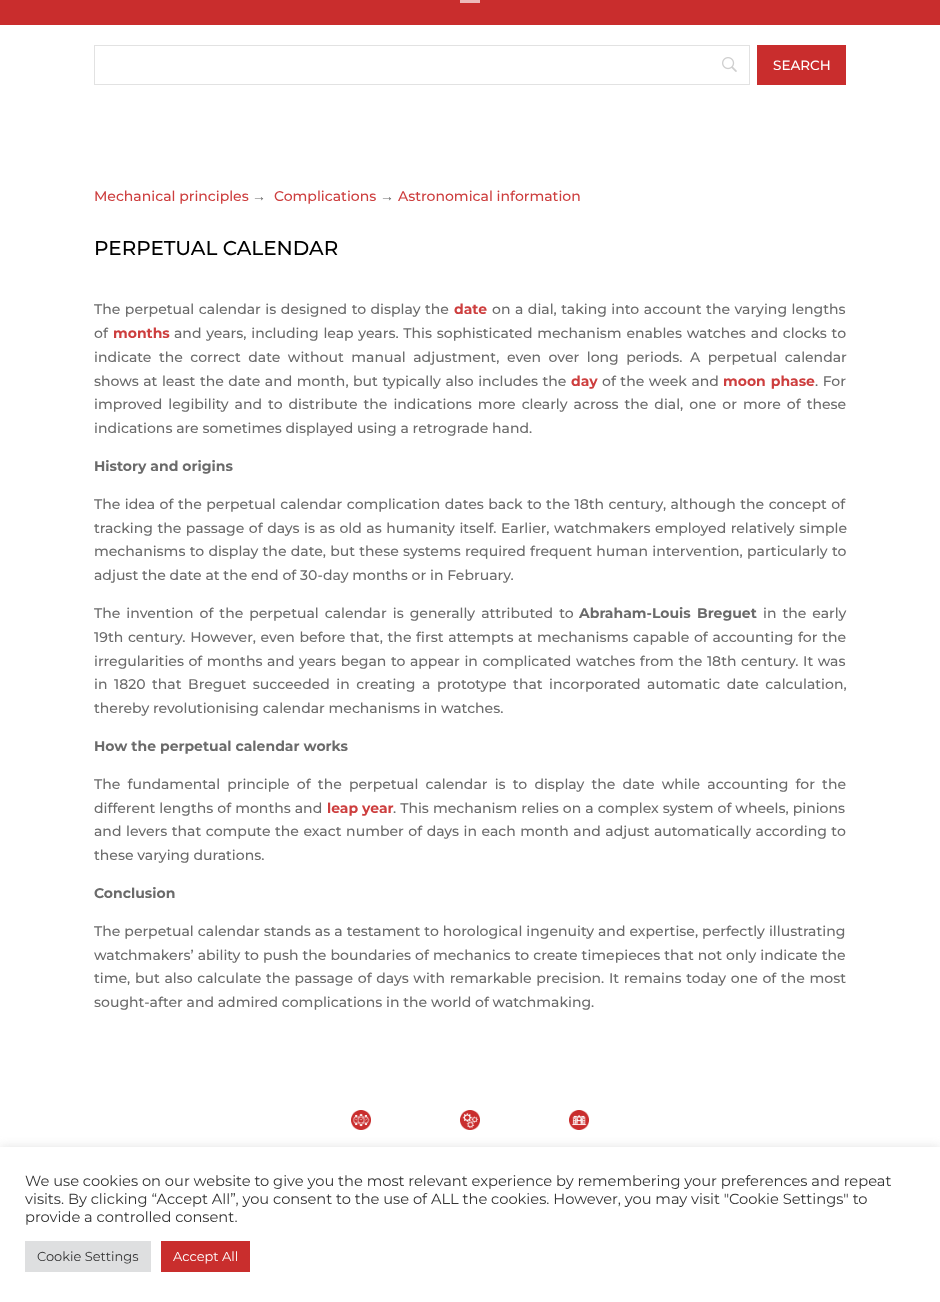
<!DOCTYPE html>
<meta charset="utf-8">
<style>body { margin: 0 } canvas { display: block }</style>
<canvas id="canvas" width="940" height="1302"></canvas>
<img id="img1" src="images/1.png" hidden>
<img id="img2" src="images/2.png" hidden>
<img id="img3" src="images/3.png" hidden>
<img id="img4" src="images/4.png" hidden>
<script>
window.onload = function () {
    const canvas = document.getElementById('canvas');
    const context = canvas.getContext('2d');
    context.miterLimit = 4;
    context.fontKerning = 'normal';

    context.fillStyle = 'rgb(255, 255, 255)';
    context.fillRect(0, 0, 940, 1302);
    context.fillStyle = 'rgb(201, 45, 45)';
    context.fillRect(0, 0, 940, 25);
    context.fillStyle = 'rgb(237, 186, 186)';
    context.fillRect(460, 0, 20, 3);
    context.drawImage(document.getElementById('img1'), 722, 57, 15, 15);
    context.strokeStyle = 'rgb(226, 226, 226)';
    context.strokeRect(94.5, 45.5, 655, 39);
    context.fillStyle = 'rgb(201, 45, 45)';
    context.fillRect(757, 45, 89, 40);
    context.drawImage(document.getElementById('img2'), 351, 1110, 20, 20);
    context.drawImage(document.getElementById('img3'), 460, 1110, 20, 20);
    context.drawImage(document.getElementById('img4'), 569, 1110, 20, 20);
    context.fillStyle = 'rgba(172, 171, 171, 0.3)';
    context.filter = 'blur(5px)';
    context.beginPath();
    context.rect(0, 1146, 940, 155);
    context.fill();
    context.filter = 'none';
    context.fillStyle = 'rgb(255, 255, 255)';
    context.fillRect(0, 1147, 940, 155);
    context.fillStyle = 'rgb(222, 223, 224)';
    context.fillRect(25, 1241, 126, 31);
    context.fillStyle = 'rgb(201, 46, 45)';
    context.fillRect(161, 1241, 89, 31);
    context.font = '500 13.5px Montserrat';
    context.fillStyle = 'rgb(255, 255, 255)';
    context.fillText('SEARCH', 773, 70);
    context.font = '500 14px Montserrat';
    context.fillStyle = 'rgb(205, 62, 62)';
    context.fillText('Mechanical principles', 94, 201);
    context.font = '14px Liberation Sans';
    context.fillStyle = 'rgb(107, 107, 107)';
    context.fillText('→', 252, 201);
    context.font = '500 14px Montserrat';
    context.fillStyle = 'rgb(205, 62, 62)';
    context.fillText('Complications', 274, 201);
    context.font = '14px Liberation Sans';
    context.fillStyle = 'rgb(107, 107, 107)';
    context.fillText('→', 380, 201);
    context.font = '500 14px Montserrat';
    context.fillStyle = 'rgb(205, 62, 62)';
    context.fillText('Astronomical information', 398, 201);
    context.font = '500 20px Montserrat';
    context.fillStyle = 'rgb(0, 0, 0)';
    context.fillText('PERPETUAL CALENDAR', 94, 255);
    context.wordSpacing = '0.75px';
    context.font = '500 14px Montserrat';
    context.fillStyle = 'rgb(107, 107, 107)';
    context.fillText('The perpetual calendar is designed to display the', 94, 314);
    context.wordSpacing = '0px';
    context.font = 'bold 14px Montserrat';
    context.fillStyle = 'rgb(205, 62, 62)';
    context.fillText('date', 454, 314);
    context.wordSpacing = '0.75px';
    context.font = '500 14px Montserrat';
    context.fillStyle = 'rgb(107, 107, 107)';
    context.fillText('on a dial, taking into account the varying lengths', 492, 314);
    context.wordSpacing = '0px';
    context.fillText('of', 94, 338);
    context.font = 'bold 14px Montserrat';
    context.fillStyle = 'rgb(205, 62, 62)';
    context.fillText('months', 113, 338);
    context.wordSpacing = '1px';
    context.font = '500 14px Montserrat';
    context.fillStyle = 'rgb(107, 107, 107)';
    context.fillText('and years, including leap years. This sophisticated mechanism enables watches and clocks to', 174, 338);
    context.wordSpacing = '3.75px';
    context.fillText('indicate the correct date without manual adjustment, even over long periods. A perpetual calendar', 94, 362);
    context.wordSpacing = '0.75px';
    context.fillText('shows at least the date and month, but typically also includes the', 94, 386);
    context.wordSpacing = '0px';
    context.font = 'bold 14px Montserrat';
    context.fillStyle = 'rgb(205, 62, 62)';
    context.fillText('day', 571, 386);
    context.wordSpacing = '0.75px';
    context.font = '500 14px Montserrat';
    context.fillStyle = 'rgb(107, 107, 107)';
    context.fillText('of the week and', 602, 386);
    context.wordSpacing = '1px';
    context.font = 'bold 14px Montserrat';
    context.fillStyle = 'rgb(205, 62, 62)';
    context.fillText('moon phase', 723, 386);
    context.wordSpacing = '0.75px';
    context.font = '500 14px Montserrat';
    context.fillStyle = 'rgb(107, 107, 107)';
    context.fillText('. For', 815, 386);
    context.wordSpacing = '2.25px';
    context.fillText('improved legibility and to distribute the indications more clearly across the dial, one or more of these', 94, 409);
    context.wordSpacing = '0px';
    context.fillText('indications are sometimes displayed using a retrograde hand.', 94, 433);
    context.font = 'bold 14px Montserrat';
    context.fillText('History and origins', 94, 471);
    context.wordSpacing = '0.75px';
    context.font = '500 14px Montserrat';
    context.fillText('The idea of the perpetual calendar complication dates back to the 18th century, although the concept of', 94, 509);
    context.fillText('tracking the passage of days is as old as humanity itself. Earlier, watchmakers employed relatively simple', 94, 533);
    context.wordSpacing = '0.5px';
    context.fillText('mechanisms to display the date, but these systems required frequent human intervention, particularly to', 94, 556);
    context.wordSpacing = '0px';
    context.fillText('adjust the date at the end of 30-day months or in February.', 94, 580);
    context.wordSpacing = '2.25px';
    context.fillText('The invention of the perpetual calendar is generally attributed to', 94, 618);
    context.font = 'bold 14px Montserrat';
    context.fillText('Abraham-Louis Breguet', 579, 618);
    context.font = '500 14px Montserrat';
    context.fillText('in the early', 763, 618);
    context.wordSpacing = '0.9px';
    context.fillText('19th century. However, even before that, the first attempts at mechanisms capable of accounting for the', 94, 642);
    context.wordSpacing = '0.8px';
    context.fillText('irregularities of months and years began to appear in complicated watches from the 18th century. It was', 94, 666);
    context.wordSpacing = '2.75px';
    context.fillText('in 1820 that Breguet succeeded in creating a prototype that incorporated automatic date calculation,', 94, 689);
    context.wordSpacing = '0px';
    context.fillText('thereby revolutionising calendar mechanisms in watches.', 94, 713);
    context.font = 'bold 14px Montserrat';
    context.fillText('How the perpetual calendar works', 94, 751);
    context.wordSpacing = '3.4px';
    context.font = '500 14px Montserrat';
    context.fillText('The fundamental principle of the perpetual calendar is to display the date while accounting for the', 94, 789);
    context.wordSpacing = '0.25px';
    context.fillText('different lengths of months and', 94, 813);
    context.wordSpacing = '0px';
    context.font = 'bold 14px Montserrat';
    context.fillStyle = 'rgb(205, 62, 62)';
    context.fillText('leap year', 327, 813);
    context.wordSpacing = '0.25px';
    context.font = '500 14px Montserrat';
    context.fillStyle = 'rgb(107, 107, 107)';
    context.fillText('. This mechanism relies on a complex system of wheels, pinions', 393, 813);
    context.wordSpacing = '0.75px';
    context.fillText('and levers that compute the exact number of days in each month and adjust automatically according to', 94, 836);
    context.wordSpacing = '0px';
    context.fillText('these varying durations.', 94, 860);
    context.font = 'bold 14px Montserrat';
    context.fillText('Conclusion', 94, 898);
    context.wordSpacing = '0.25px';
    context.font = '500 14px Montserrat';
    context.fillText('The perpetual calendar stands as a testament to horological ingenuity and expertise, perfectly illustrating', 94, 936);
    context.wordSpacing = '0.3px';
    context.fillText('watchmakers’ ability to push the boundaries of mechanics to create timepieces that not only indicate the', 94, 960);
    context.wordSpacing = '0.9px';
    context.fillText('time, but also calculate the passage of days with remarkable precision. It remains today one of the most', 94, 983);
    context.wordSpacing = '0px';
    context.fillText('sought-after and admired complications in the world of watchmaking.', 94, 1007);
    context.font = '14.67px Montserrat';
    context.fillStyle = 'rgb(51, 51, 51)';
    context.fillText('We use cookies on our website to give you the most relevant experience by remembering your preferences and repeat', 25, 1186);
    context.fillText('visits. By clicking “Accept All”, you consent to the use of ALL the cookies. However, you may visit "Cookie Settings" to', 25, 1204);
    context.fillText('provide a controlled consent.', 25, 1222);
    context.font = '13px Montserrat';
    context.fillText('Cookie Settings', 37, 1261);
    context.fillStyle = 'rgb(255, 255, 255)';
    context.fillText('Accept All', 173, 1261);
};
</script>
